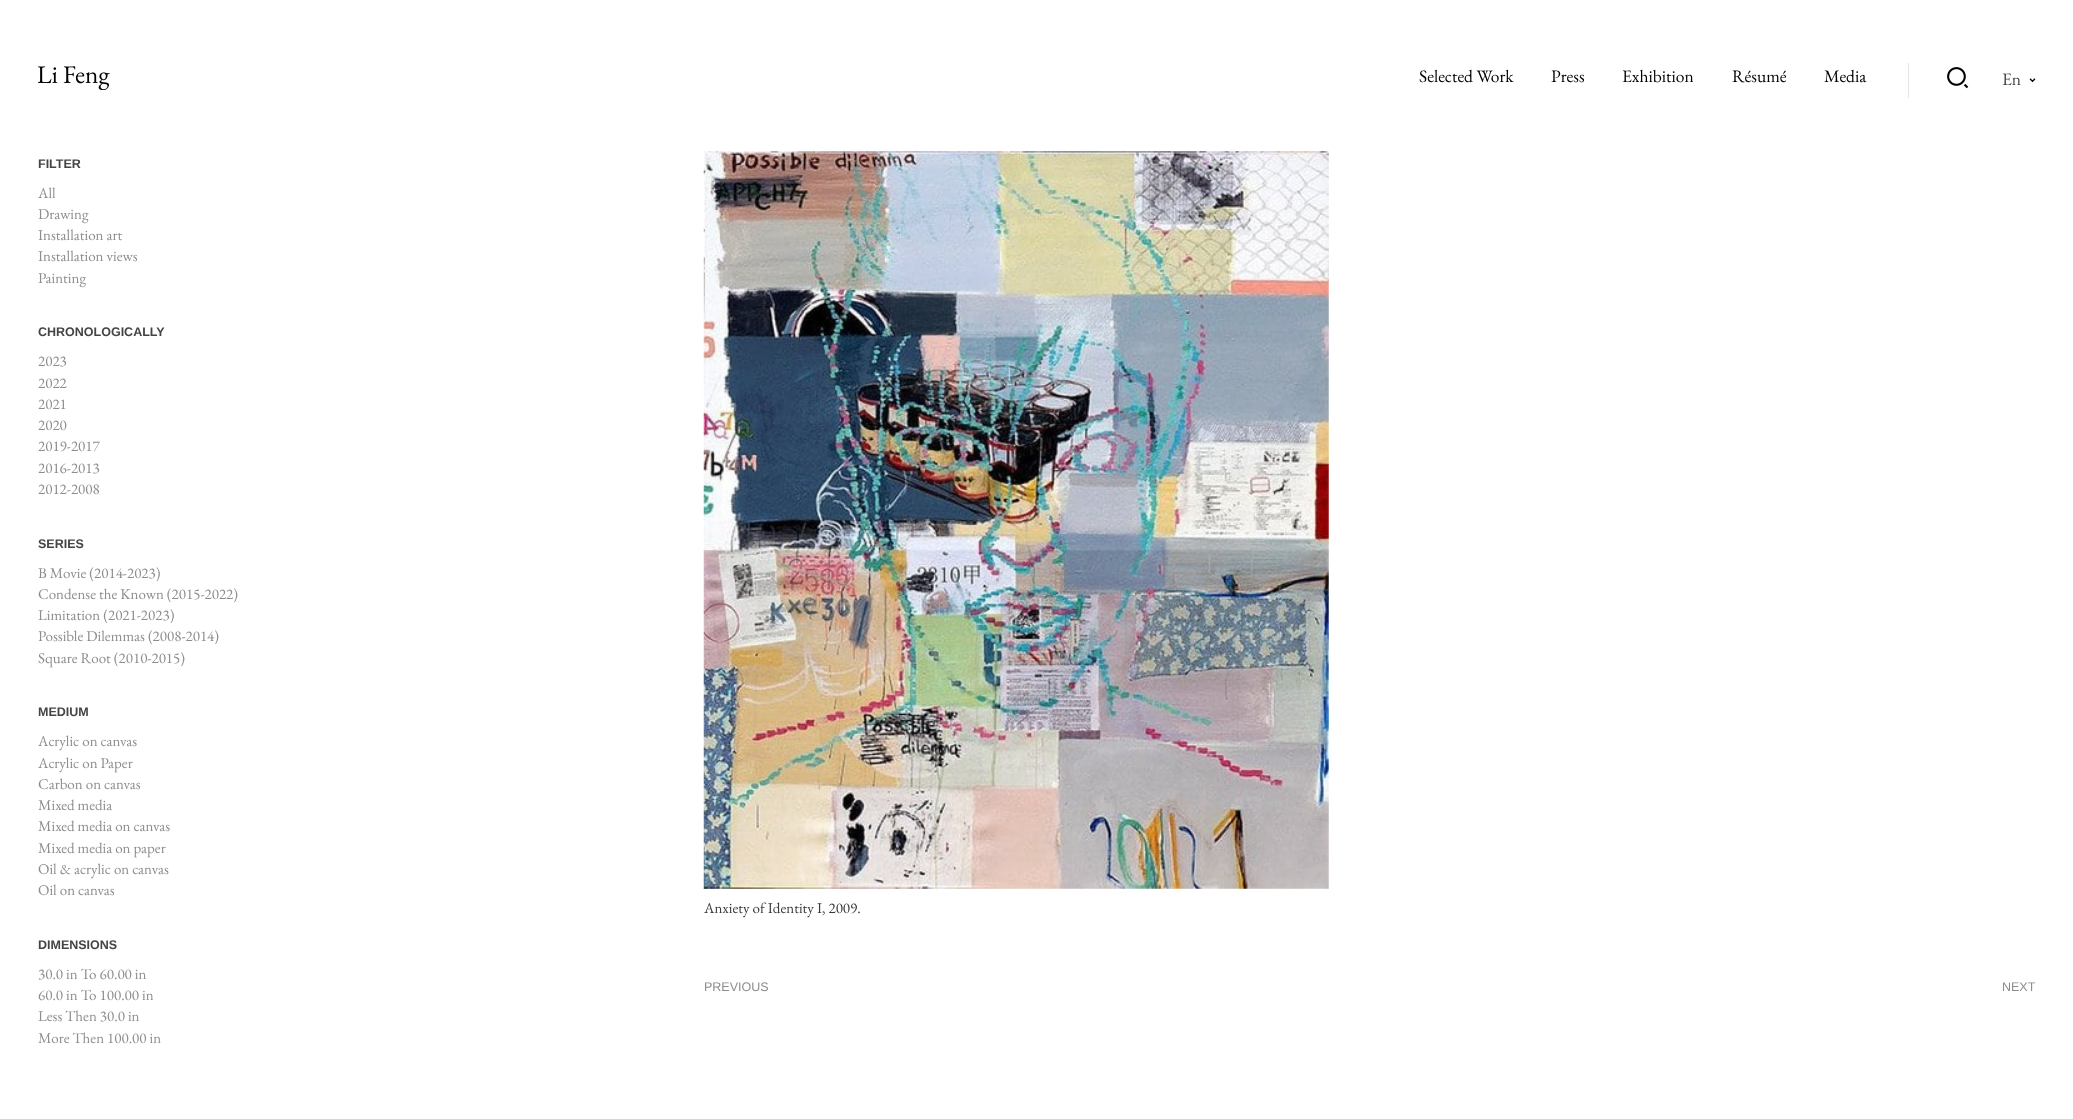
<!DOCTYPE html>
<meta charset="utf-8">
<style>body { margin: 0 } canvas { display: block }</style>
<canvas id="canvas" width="2073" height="1119"></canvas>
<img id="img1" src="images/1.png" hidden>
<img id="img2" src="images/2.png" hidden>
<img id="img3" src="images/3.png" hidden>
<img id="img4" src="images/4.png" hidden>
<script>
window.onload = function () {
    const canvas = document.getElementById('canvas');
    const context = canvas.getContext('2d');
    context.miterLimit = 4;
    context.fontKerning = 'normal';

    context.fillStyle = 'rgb(255, 255, 255)';
    context.fillRect(0, 0, 2073, 1119);
    context.drawImage(document.getElementById('img1'), 38, 66, 72, 24);
    context.fillStyle = 'rgb(228, 228, 228)';
    context.fillRect(1908, 63, 1, 35);
    context.drawImage(document.getElementById('img2'), 1947, 67, 22, 22);
    context.drawImage(document.getElementById('img3'), 2029, 78, 7, 5);
    context.drawImage(document.getElementById('img4'), 703, 151, 626, 738);
    context.font = '17.5px EB Garamond';
    context.fillStyle = 'rgb(0, 0, 0)';
    context.fillText('Selected Work', 1419, 82);
    context.fillText('Press', 1551, 82);
    context.fillText('Exhibition', 1622, 82);
    context.fillText('Résumé', 1732, 82);
    context.fillText('Media', 1824, 82);
    context.fillStyle = 'rgb(68, 68, 68)';
    context.fillText('En', 2002, 85);
    context.font = 'bold 12.5px Liberation Sans';
    context.fillText('FILTER', 38, 168);
    context.font = '15px EB Garamond';
    context.fillStyle = 'rgb(141, 141, 141)';
    context.fillText('All', 38, 198);
    context.fillText('Drawing', 38, 219);
    context.fillText('Installation art', 38, 240);
    context.fillText('Installation views', 38, 261);
    context.fillText('Painting', 38, 283);
    context.font = 'bold 12.5px Liberation Sans';
    context.fillStyle = 'rgb(68, 68, 68)';
    context.fillText('CHRONOLOGICALLY', 38, 336);
    context.font = '15px EB Garamond';
    context.fillStyle = 'rgb(141, 141, 141)';
    context.fillText('2023', 38, 366);
    context.fillText('2022', 38, 388);
    context.fillText('2021', 38, 409);
    context.fillText('2020', 38, 430);
    context.fillText('2019-2017', 38, 451);
    context.fillText('2016-2013', 38, 473);
    context.fillText('2012-2008', 38, 494);
    context.font = 'bold 12.5px Liberation Sans';
    context.fillStyle = 'rgb(68, 68, 68)';
    context.fillText('SERIES', 38, 548);
    context.font = '15px EB Garamond';
    context.fillStyle = 'rgb(141, 141, 141)';
    context.fillText('B Movie (2014-2023)', 38, 578);
    context.fillText('Condense the Known (2015-2022)', 38, 599);
    context.fillText('Limitation (2021-2023)', 38, 620);
    context.fillText('Possible Dilemmas (2008-2014)', 38, 641);
    context.fillText('Square Root (2010-2015)', 38, 663);
    context.font = 'bold 12.5px Liberation Sans';
    context.fillStyle = 'rgb(68, 68, 68)';
    context.fillText('MEDIUM', 38, 716);
    context.font = '15px EB Garamond';
    context.fillStyle = 'rgb(141, 141, 141)';
    context.fillText('Acrylic on canvas', 38, 746);
    context.fillText('Acrylic on Paper', 38, 768);
    context.fillText('Carbon on canvas', 38, 789);
    context.fillText('Mixed media', 38, 810);
    context.fillText('Mixed media on canvas', 38, 831);
    context.fillText('Mixed media on paper', 38, 853);
    context.fillText('Oil & acrylic on canvas', 38, 874);
    context.fillText('Oil on canvas', 38, 895);
    context.font = 'bold 12.5px Liberation Sans';
    context.fillStyle = 'rgb(68, 68, 68)';
    context.fillText('DIMENSIONS', 38, 949);
    context.font = '15px EB Garamond';
    context.fillStyle = 'rgb(141, 141, 141)';
    context.fillText('30.0 in To 60.00 in', 38, 979);
    context.fillText('60.0 in To 100.00 in', 38, 1000);
    context.fillText('Less Then 30.0 in', 38, 1021);
    context.fillText('More Then 100.00 in', 38, 1043);
    context.fillStyle = 'rgb(57, 57, 57)';
    context.fillText('Anxiety of Identity I, 2009.', 704, 913);
    context.font = '12.5px Liberation Sans';
    context.fillStyle = 'rgb(141, 141, 141)';
    context.fillText('PREVIOUS', 704, 991);
    context.fillText('NEXT', 2002, 991);
};
</script>
